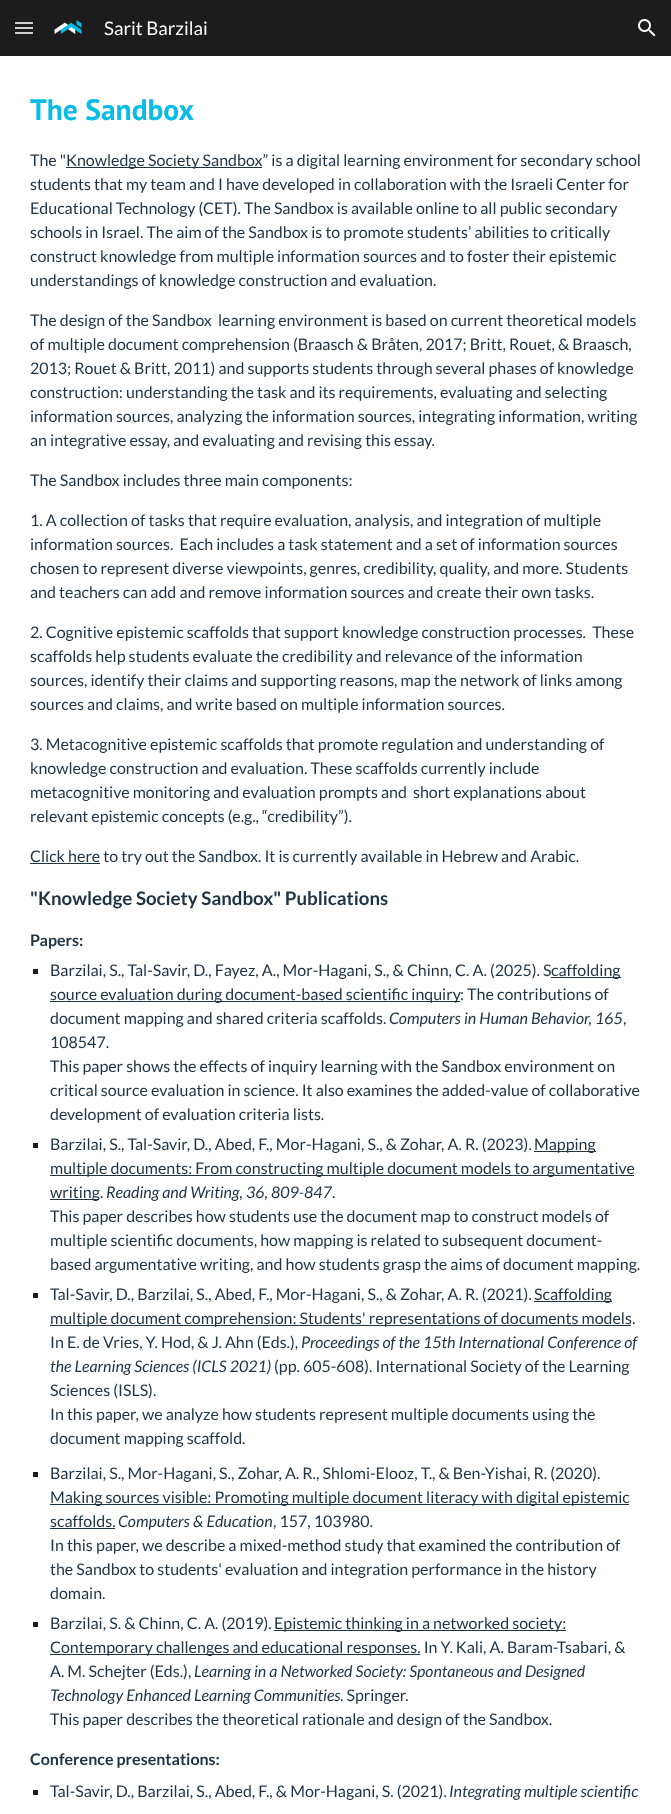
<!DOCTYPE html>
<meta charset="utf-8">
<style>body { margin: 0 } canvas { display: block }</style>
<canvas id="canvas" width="671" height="1814"></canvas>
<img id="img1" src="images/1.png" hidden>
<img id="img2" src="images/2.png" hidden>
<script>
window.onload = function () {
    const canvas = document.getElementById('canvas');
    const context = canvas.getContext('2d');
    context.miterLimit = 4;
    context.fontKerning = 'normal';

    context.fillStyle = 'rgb(255, 255, 255)';
    context.fillRect(0, 0, 671, 1814);
    context.fillStyle = 'rgb(28, 28, 28)';
    context.fillRect(0, 0, 671, 56);
    context.fillStyle = 'rgb(209, 209, 209)';
    context.fillRect(15, 22, 18, 2);
    context.fillRect(15, 27, 18, 2);
    context.fillRect(15, 32, 18, 2);
    context.drawImage(document.getElementById('img1'), 54, 20, 28, 15);
    context.drawImage(document.getElementById('img2'), 638, 19, 18, 18);
    context.fillStyle = 'rgb(31, 51, 67)';
    context.fillRect(66, 167, 196, 1);
    context.fillRect(30, 863, 70, 1);
    context.fillStyle = 'rgb(28, 28, 28)';
    context.fillRect(33, 969, 5, 5);
    context.fillStyle = 'rgb(32, 51, 66)';
    context.fillRect(551, 977, 70, 1);
    context.fillRect(50, 1001, 410, 1);
    context.fillStyle = 'rgb(28, 28, 28)';
    context.fillRect(33, 1143, 5, 5);
    context.fillStyle = 'rgb(31, 51, 67)';
    context.fillRect(534, 1151, 62, 1);
    context.fillRect(50, 1175, 584, 1);
    context.fillRect(50, 1199, 49, 1);
    context.fillStyle = 'rgb(28, 28, 28)';
    context.fillRect(33, 1293, 5, 5);
    context.fillStyle = 'rgb(31, 51, 67)';
    context.fillRect(534, 1301, 78, 1);
    context.fillRect(50, 1325, 581, 1);
    context.fillStyle = 'rgb(28, 28, 28)';
    context.fillRect(33, 1472, 5, 5);
    context.fillStyle = 'rgb(31, 51, 67)';
    context.fillRect(50, 1504, 579, 1);
    context.fillRect(50, 1528, 65, 1);
    context.fillStyle = 'rgb(28, 28, 28)';
    context.fillRect(33, 1622, 5, 5);
    context.fillStyle = 'rgb(31, 51, 67)';
    context.fillRect(274, 1630, 292, 1);
    context.fillRect(50, 1654, 370, 1);
    context.fillStyle = 'rgb(28, 28, 28)';
    context.fillRect(33, 1790, 5, 5);
    context.font = '18.7px Lato';
    context.fillStyle = 'rgb(249, 249, 249)';
    context.fillText('Sarit Barzilai', 104, 35);
    context.font = 'bold 29.5px PT Sans';
    context.fillStyle = 'rgb(9, 188, 231)';
    context.fillText('The Sandbox', 30, 120);
    context.font = '16px Lato';
    context.fillStyle = 'rgb(31, 51, 67)';
    context.fillText('The "', 30, 166);
    context.fillText('Knowledge Society Sandbox” is a digital learning environment for secondary school', 66, 166);
    context.fillText('students that my team and I have developed in collaboration with the Israeli Center for', 30, 190);
    context.fillText('Educational Technology (CET). The Sandbox is available online to all public secondary', 30, 214);
    context.fillText('schools in Israel. The aim of the Sandbox is to promote students’ abilities to critically', 30, 238);
    context.fillText('construct knowledge from multiple information sources and to foster their epistemic', 30, 262);
    context.fillText('understandings of knowledge construction and evaluation.', 30, 286);
    context.fillText('The design of the Sandbox', 30, 326);
    context.fillText('learning environment is based on current theoretical models', 218, 326);
    context.fillText('of multiple document comprehension (Braasch & Bråten, 2017; Britt, Rouet, & Braasch,', 30, 350);
    context.fillText('2013; Rouet & Britt, 2011) and supports students through several phases of knowledge', 30, 374);
    context.fillText('construction: understanding the task and its requirements, evaluating and selecting', 30, 398);
    context.fillText('information sources, analyzing the information sources, integrating information, writing', 30, 422);
    context.fillText('an integrative essay, and evaluating and revising this essay.', 30, 446);
    context.fillText('The Sandbox includes three main components:', 30, 486);
    context.fillText('1. A collection of tasks that require evaluation, analysis, and integration of multiple', 30, 526);
    context.fillText('information sources.  Each includes a task statement and a set of information sources', 30, 550);
    context.fillText('chosen to represent diverse viewpoints, genres, credibility, quality, and more. Students', 30, 574);
    context.fillText('and teachers can add and remove information sources and create their own tasks.', 30, 598);
    context.fillText('2. Cognitive epistemic scaffolds that support knowledge construction processes.  These', 30, 638);
    context.fillText('scaffolds help students evaluate the credibility and relevance of the information', 30, 662);
    context.fillText('sources, identify their claims and supporting reasons, map the network of links among', 30, 686);
    context.fillText('sources and claims, and write based on multiple information sources.', 30, 710);
    context.fillText('3. Metacognitive epistemic scaffolds that promote regulation and understanding of', 30, 750);
    context.fillText('knowledge construction and evaluation. These scaffolds currently include', 30, 774);
    context.fillText('metacognitive monitoring and evaluation prompts and', 30, 798);
    context.fillText('short explanations about', 413, 798);
    context.fillText('relevant epistemic concepts (e.g., “credibility”).', 30, 822);
    context.fillText('Click here to try out the Sandbox. It is currently available in Hebrew and Arabic.', 30, 862);
    context.font = 'bold 18.7px Lato';
    context.fillText('"Knowledge Society Sandbox" Publications', 30, 905);
    context.font = 'bold 16px Lato';
    context.fillText('Papers:', 30, 946);
    context.font = '16px Lato';
    context.fillText('Barzilai, S., Tal-Savir, D., Fayez, A., Mor-Hagani, S., & Chinn, C. A. (2025). S', 50, 976);
    context.fillText('caffolding', 551, 976);
    context.fillText('source evaluation during document-based scientific inquiry', 50, 1000);
    context.fillText(': The contributions of', 460, 1000);
    context.fillText('document mapping and shared criteria scaffolds.', 50, 1024);
    context.font = 'italic 16px Lato';
    context.fillText('Computers in Human Behavior, 165', 389, 1024);
    context.font = '16px Lato';
    context.fillText(',', 623, 1024);
    context.fillText('108547.', 50, 1048);
    context.fillText('This paper shows the effects of inquiry learning with the Sandbox environment on', 50, 1072);
    context.fillText('critical source evaluation in science. It also examines the added-value of collaborative', 50, 1096);
    context.fillText('development of evaluation criteria lists.', 50, 1120);
    context.fillText('Barzilai, S., Tal-Savir, D., Abed, F., Mor-Hagani, S., & Zohar, A. R. (2023).', 50, 1150);
    context.fillText('Mapping', 534, 1150);
    context.fillText('multiple documents: From constructing multiple document models to argumentative', 50, 1174);
    context.fillText('writing.', 50, 1198);
    context.font = 'italic 16px Lato';
    context.fillText('Reading and Writing, 36, 809-847', 106, 1198);
    context.font = '16px Lato';
    context.fillText('.', 332, 1198);
    context.fillText('This paper describes how students use the document map to construct models of', 50, 1222);
    context.fillText('multiple scientific documents, how mapping is related to subsequent document-', 50, 1246);
    context.fillText('based argumentative writing, and how students grasp the aims of document mapping.', 50, 1270);
    context.fillText('Tal-Savir, D., Barzilai, S., Abed, F., Mor-Hagani, S., & Zohar, A. R. (2021).', 50, 1300);
    context.fillText('Scaffolding', 534, 1300);
    context.fillText('multiple document comprehension: Students\' representations of documents models.', 50, 1324);
    context.fillText('In E. de Vries, Y. Hod, & J. Ahn (Eds.),', 50, 1348);
    context.font = 'italic 16px Lato';
    context.fillText('Proceedings of the 15th International Conference of', 301, 1348);
    context.fillText('the Learning Sciences (ICLS 2021)', 50, 1372);
    context.font = '16px Lato';
    context.fillText('(pp. 605-608). International Society of the Learning', 274, 1372);
    context.fillText('Sciences (ISLS).', 50, 1396);
    context.fillText('In this paper, we analyze how students represent multiple documents using the', 50, 1420);
    context.fillText('document mapping scaffold.', 50, 1444);
    context.fillText('Barzilai, S., Mor-Hagani, S., Zohar, A. R., Shlomi-Elooz, T., & Ben-Yishai, R. (2020).', 50, 1479);
    context.fillText('Making sources visible: Promoting multiple document literacy with digital epistemic', 50, 1503);
    context.fillText('scaffolds.', 50, 1527);
    context.font = 'italic 16px Lato';
    context.fillText('Computers & Education', 118, 1527);
    context.font = '16px Lato';
    context.fillText(', 157, 103980.', 273, 1527);
    context.fillText('In this paper, we describe a mixed-method study that examined the contribution of', 50, 1551);
    context.fillText('the Sandbox to students\' evaluation and integration performance in the history', 50, 1575);
    context.fillText('domain.', 50, 1599);
    context.fillText('Barzilai, S. & Chinn, C. A. (2019).', 50, 1629);
    context.fillText('Epistemic thinking in a networked society:', 274, 1629);
    context.fillText('Contemporary challenges and educational responses. In Y. Kali, A. Baram-Tsabari, &', 50, 1653);
    context.fillText('A. M. Schejter (Eds.),', 50, 1677);
    context.font = 'italic 16px Lato';
    context.fillText('Learning in a Networked Society: Spontaneous and Designed', 194, 1677);
    context.fillText('Technology Enhanced Learning Communities', 50, 1701);
    context.font = '16px Lato';
    context.fillText('. Springer.', 340, 1701);
    context.fillText('This paper describes the theoretical rationale and design of the Sandbox.', 50, 1725);
    context.font = 'bold 16px Lato';
    context.fillText('Conference presentations:', 30, 1765);
    context.font = '16px Lato';
    context.fillText('Tal-Savir, D., Barzilai, S., Abed, F., & Mor-Hagani, S. (2021).', 50, 1797);
    context.font = 'italic 16px Lato';
    context.fillText('Integrating multiple scientific', 449, 1797);
};
</script>
